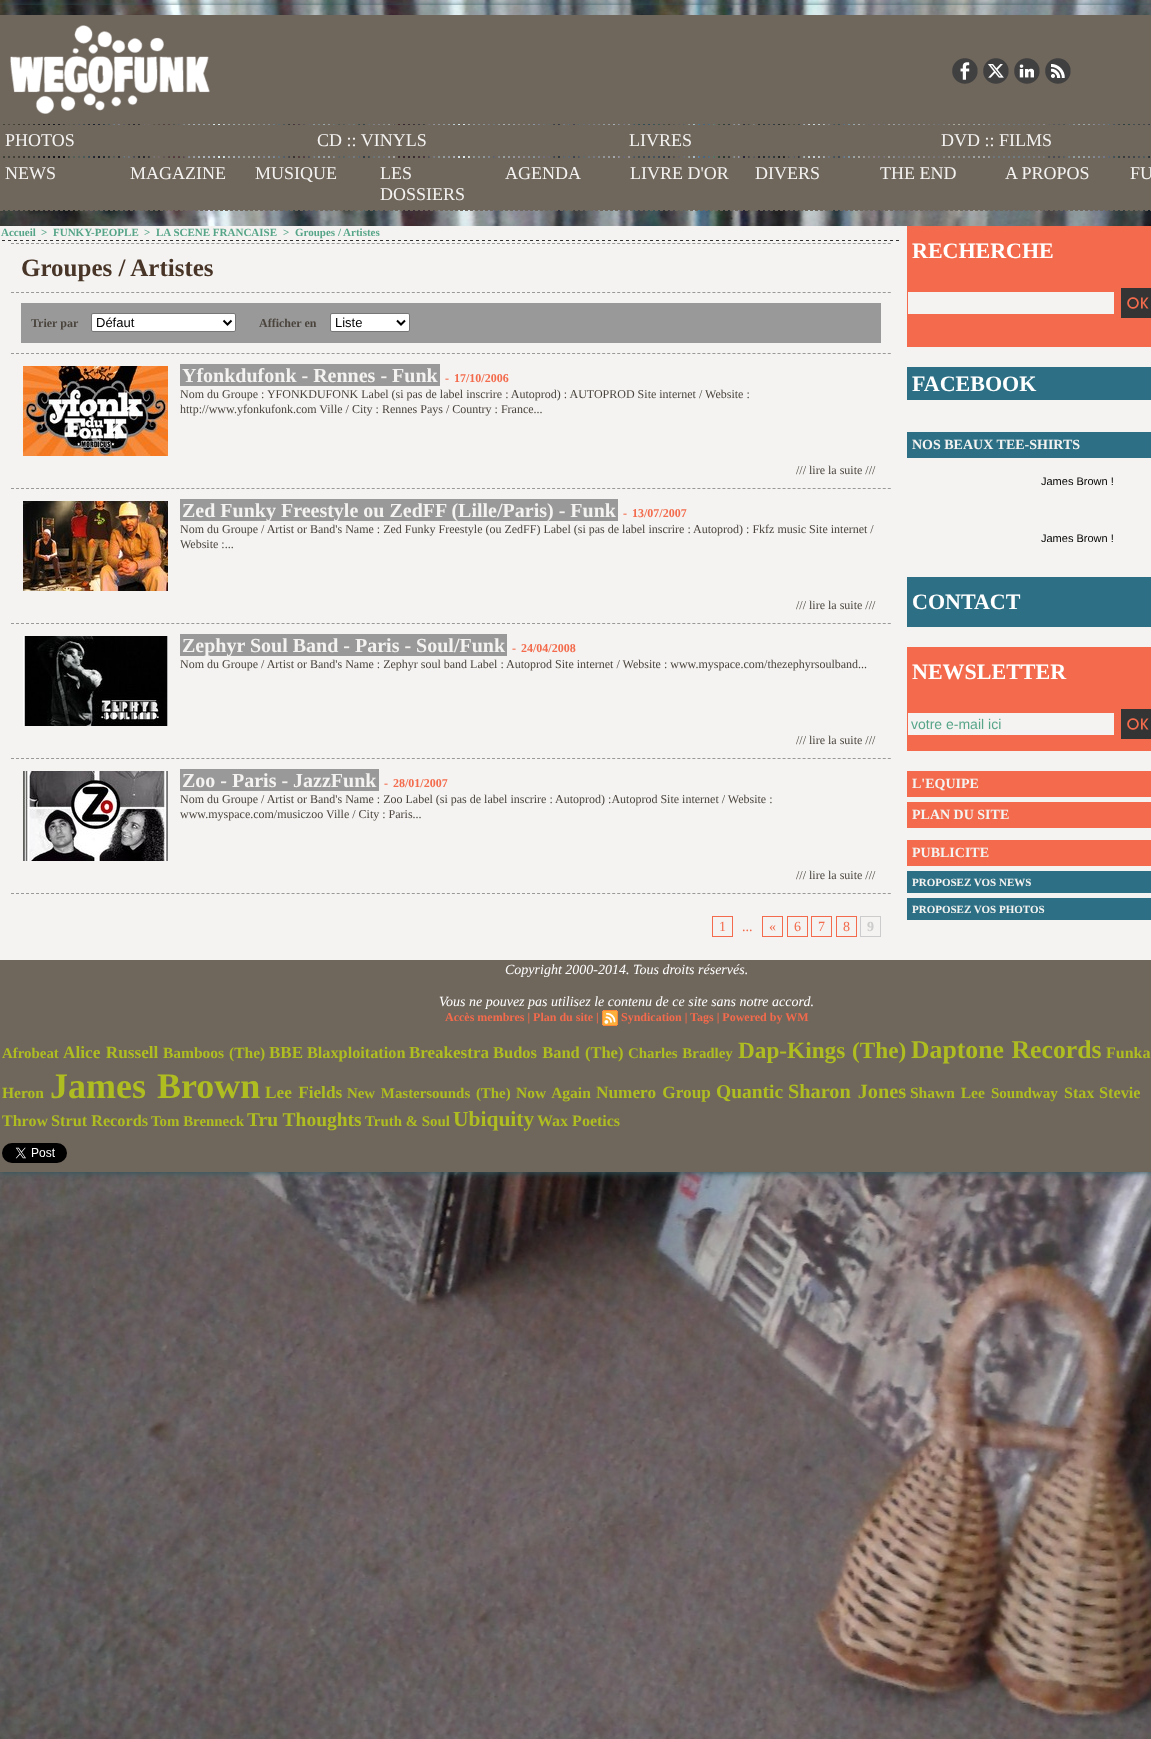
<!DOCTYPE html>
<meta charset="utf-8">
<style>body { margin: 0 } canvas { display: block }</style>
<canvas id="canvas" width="1151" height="1739"></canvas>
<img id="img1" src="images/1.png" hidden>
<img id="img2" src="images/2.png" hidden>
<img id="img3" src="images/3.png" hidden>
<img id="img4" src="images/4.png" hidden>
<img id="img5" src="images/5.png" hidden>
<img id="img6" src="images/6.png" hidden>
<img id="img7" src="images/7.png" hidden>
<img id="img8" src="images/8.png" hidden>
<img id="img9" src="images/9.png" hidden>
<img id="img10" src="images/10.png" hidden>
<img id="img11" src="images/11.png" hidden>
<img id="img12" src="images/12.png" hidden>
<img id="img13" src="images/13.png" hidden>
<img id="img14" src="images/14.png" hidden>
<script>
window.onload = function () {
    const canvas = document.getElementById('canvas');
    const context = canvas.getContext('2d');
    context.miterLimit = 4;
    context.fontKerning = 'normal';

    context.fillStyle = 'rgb(255, 255, 255)';
    context.fillRect(0, 0, 1151, 1739);
    context.drawImage(document.getElementById('img1'), 0, 0, 1151, 1739);
    context.save();
    context.beginPath();
    context.moveTo(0, 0);
    context.lineTo(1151, 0);
    context.lineTo(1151, 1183);
    context.lineTo(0, 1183);
    context.closePath();
    context.moveTo(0, 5);
    context.lineTo(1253, 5);
    context.lineTo(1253, 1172);
    context.lineTo(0, 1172);
    context.closePath();
    context.clip('evenodd');
    context.fillStyle = 'rgb(48, 85, 93)';
    context.filter = 'blur(3px)';
    context.beginPath();
    context.rect(0, 6, 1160, 1167);
    context.fill();
    context.filter = 'none';
    context.restore();
    context.fillStyle = 'rgb(111, 102, 92)';
    context.fillRect(0, 15, 1151, 109);
    context.drawImage(document.getElementById('img2'), 10, 25, 200, 89);
    context.drawImage(document.getElementById('img3'), 952, 58, 26, 26);
    context.drawImage(document.getElementById('img4'), 983, 58, 26, 26);
    context.drawImage(document.getElementById('img5'), 1014, 58, 26, 26);
    context.drawImage(document.getElementById('img6'), 1045, 58, 26, 26);
    context.beginPath();
    context.moveTo(0, 124.5);
    context.lineTo(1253, 124.5);
    context.strokeStyle = 'rgb(111, 102, 92)';
    context.setLineDash([3, 2]);
    context.stroke();
    context.beginPath();
    context.moveTo(0, 156.5);
    context.lineTo(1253, 156.5);
    context.stroke();
    context.fillRect(0, 125, 1151, 31);
    context.beginPath();
    context.moveTo(0, 157.5);
    context.lineTo(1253, 157.5);
    context.stroke();
    context.beginPath();
    context.moveTo(0, 210.5);
    context.lineTo(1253, 210.5);
    context.stroke();
    context.fillRect(0, 158, 1151, 52);
    context.fillStyle = 'rgb(244, 243, 241)';
    context.fillRect(0, 226, 1151, 734);
    context.drawImage(document.getElementById('img7'), 2, 240, 897, 1);
    context.beginPath();
    context.moveTo(11, 243.5);
    context.lineTo(891, 243.5);
    context.strokeStyle = 'rgb(153, 153, 153)';
    context.setLineDash([3, 2.01]);
    context.stroke();
    context.beginPath();
    context.moveTo(11, 292.5);
    context.lineTo(891, 292.5);
    context.stroke();
    context.beginPath();
    context.moveTo(11, 353.5);
    context.lineTo(891, 353.5);
    context.stroke();
    context.fillStyle = 'rgb(153, 153, 153)';
    context.fillRect(21, 303, 860, 40);
    context.fillStyle = 'rgb(255, 255, 255)';
    context.beginPath();
    context.roundRect(91.5, 313.5, 144, 18, 1.5);
    context.fill();
    context.strokeStyle = 'rgb(118, 118, 118)';
    context.setLineDash([]);
    context.stroke();
    context.beginPath();
    context.moveTo(223.5, 320.5);
    context.lineTo(227.5, 324.5);
    context.lineTo(231.5, 320.5);
    context.strokeStyle = 'rgb(0, 0, 0)';
    context.lineWidth = 2;
    context.stroke();
    context.beginPath();
    context.roundRect(330.5, 313.5, 79, 18, 1.5);
    context.fill();
    context.strokeStyle = 'rgb(118, 118, 118)';
    context.lineWidth = 1;
    context.stroke();
    context.beginPath();
    context.moveTo(397, 320.5);
    context.lineTo(401, 324.5);
    context.lineTo(405, 320.5);
    context.strokeStyle = 'rgb(0, 0, 0)';
    context.lineWidth = 2;
    context.stroke();
    context.beginPath();
    context.moveTo(11, 488.5);
    context.lineTo(891, 488.5);
    context.strokeStyle = 'rgb(153, 153, 153)';
    context.lineWidth = 1;
    context.setLineDash([3, 2.01]);
    context.stroke();
    context.drawImage(document.getElementById('img8'), 23, 366, 145, 90);
    context.fillStyle = 'rgb(153, 153, 153)';
    context.fillRect(180, 364, 260, 22);
    context.beginPath();
    context.moveTo(11, 623.5);
    context.lineTo(891, 623.5);
    context.stroke();
    context.drawImage(document.getElementById('img9'), 23, 501, 145, 90);
    context.fillRect(180, 499, 438, 22);
    context.beginPath();
    context.moveTo(11, 758.5);
    context.lineTo(891, 758.5);
    context.stroke();
    context.drawImage(document.getElementById('img10'), 23, 636, 145, 90);
    context.fillRect(180, 634, 327, 22);
    context.beginPath();
    context.moveTo(11, 893.5);
    context.lineTo(891, 893.5);
    context.stroke();
    context.drawImage(document.getElementById('img11'), 23, 771, 145, 90);
    context.fillRect(180, 769, 199, 22);
    context.strokeStyle = 'rgb(243, 107, 76)';
    context.setLineDash([]);
    context.strokeRect(712.5, 916.5, 20, 20);
    context.strokeRect(762.5, 916.5, 20, 20);
    context.strokeRect(787.5, 916.5, 20, 20);
    context.strokeRect(811.5, 916.5, 20, 20);
    context.strokeRect(836.5, 916.5, 20, 20);
    context.strokeStyle = 'rgb(204, 204, 204)';
    context.strokeRect(860.5, 916.5, 20, 20);
    context.fillStyle = 'rgb(243, 107, 76)';
    context.fillRect(907, 226, 244, 121);
    context.fillStyle = 'rgb(244, 243, 241)';
    context.fillRect(908, 292, 206, 22);
    context.drawImage(document.getElementById('img12'), 1121, 288, 30, 30);
    context.fillStyle = 'rgb(45, 112, 133)';
    context.fillRect(907, 367, 244, 33);
    context.fillRect(907, 432, 244, 26);
    context.fillRect(907, 577, 244, 50);
    context.fillStyle = 'rgb(243, 107, 76)';
    context.fillRect(907, 647, 244, 104);
    context.fillStyle = 'rgb(244, 243, 241)';
    context.fillRect(908, 713, 206, 22);
    context.drawImage(document.getElementById('img12'), 1121, 709, 30, 30);
    context.fillStyle = 'rgb(243, 107, 76)';
    context.fillRect(907, 771, 244, 26);
    context.fillRect(907, 802, 244, 26);
    context.fillRect(907, 840, 244, 26);
    context.fillStyle = 'rgb(45, 112, 133)';
    context.fillRect(907, 871, 244, 22);
    context.fillRect(907, 898, 244, 22);
    context.fillStyle = 'rgb(111, 102, 92)';
    context.fillRect(0, 960, 1151, 212);
    context.drawImage(document.getElementById('img13'), 602, 1010, 16, 16);
    context.drawImage(document.getElementById('img14'), 2, 1143, 65, 20);
    context.font = '18px Liberation Serif';
    context.fillStyle = 'rgb(244, 243, 241)';
    context.fillText('PHOTOS', 5, 146);
    context.fillText('CD :: VINYLS', 317, 146);
    context.fillText('LIVRES', 629, 146);
    context.fillText('DVD :: FILMS', 941, 146);
    context.fillText('NEWS', 5, 179);
    context.fillText('MAGAZINE', 130, 179);
    context.fillText('MUSIQUE', 255, 179);
    context.fillText('LES', 380, 179);
    context.fillText('DOSSIERS', 380, 200);
    context.fillText('AGENDA', 505, 179);
    context.fillText('LIVRE D\'OR', 630, 179);
    context.fillText('DIVERS', 755, 179);
    context.fillText('THE END', 880, 179);
    context.fillText('A PROPOS', 1005, 179);
    context.fillText('FU', 1130, 179);
    context.font = 'bold 11px Liberation Serif';
    context.fillStyle = 'rgb(87, 165, 136)';
    context.fillText('Accueil', 1, 236);
    context.fillText('>', 41, 236);
    context.fillText('FUNKY-PEOPLE', 53, 236);
    context.fillText('>', 144, 236);
    context.fillText('LA SCENE FRANCAISE', 156, 236);
    context.fillText('>', 283, 236);
    context.fillText('Groupes / Artistes', 295, 236);
    context.font = 'bold 25px Liberation Serif';
    context.fillStyle = 'rgb(72, 53, 39)';
    context.fillText('Groupes / Artistes', 21, 276);
    context.font = 'bold 12px Liberation Serif';
    context.fillStyle = 'rgb(74, 68, 61)';
    context.fillText('Trier par', 31, 327);
    context.font = '13px Liberation Sans';
    context.fillStyle = 'rgb(0, 0, 0)';
    context.fillText('Défaut', 96, 327);
    context.font = 'bold 12px Liberation Serif';
    context.fillStyle = 'rgb(74, 68, 61)';
    context.fillText('Afficher en', 259, 327);
    context.font = '13px Liberation Sans';
    context.fillStyle = 'rgb(0, 0, 0)';
    context.fillText('Liste', 335, 327);
    context.font = 'bold 20px Liberation Serif';
    context.fillStyle = 'rgb(244, 243, 241)';
    context.fillText('Yfonkdufonk - Rennes - Funk', 182, 382);
    context.font = 'bold 12px Liberation Serif';
    context.fillStyle = 'rgb(243, 107, 76)';
    context.fillText('-', 445, 382);
    context.fillText('17/10/2006', 454, 382);
    context.font = '12px Liberation Serif';
    context.fillStyle = 'rgb(74, 68, 61)';
    context.fillText('Nom du Groupe : YFONKDUFONK Label (si pas de label inscrire : Autoprod) : AUTOPROD Site internet / Website :', 180, 398);
    context.fillText('http://www.yfonkufonk.com Ville / City : Rennes Pays / Country : France...', 180, 413);
    context.fillText('/// lire la suite ///', 796, 474);
    context.font = 'bold 20px Liberation Serif';
    context.fillStyle = 'rgb(244, 243, 241)';
    context.fillText('Zed Funky Freestyle ou ZedFF (Lille/Paris) - Funk', 182, 517);
    context.font = 'bold 12px Liberation Serif';
    context.fillStyle = 'rgb(243, 107, 76)';
    context.fillText('-', 623, 517);
    context.fillText('13/07/2007', 632, 517);
    context.font = '12px Liberation Serif';
    context.fillStyle = 'rgb(74, 68, 61)';
    context.fillText('Nom du Groupe / Artist or Band\'s Name : Zed Funky Freestyle (ou ZedFF) Label (si pas de label inscrire : Autoprod) : Fkfz music Site internet /', 180, 533);
    context.fillText('Website :...', 180, 548);
    context.fillText('/// lire la suite ///', 796, 609);
    context.font = 'bold 20px Liberation Serif';
    context.fillStyle = 'rgb(244, 243, 241)';
    context.fillText('Zephyr Soul Band - Paris - Soul/Funk', 182, 652);
    context.font = 'bold 12px Liberation Serif';
    context.fillStyle = 'rgb(243, 107, 76)';
    context.fillText('-', 512, 652);
    context.fillText('24/04/2008', 521, 652);
    context.font = '12px Liberation Serif';
    context.fillStyle = 'rgb(74, 68, 61)';
    context.fillText('Nom du Groupe / Artist or Band\'s Name : Zephyr soul band Label : Autoprod Site internet / Website : www.myspace.com/thezephyrsoulband...', 180, 668);
    context.fillText('/// lire la suite ///', 796, 744);
    context.font = 'bold 20px Liberation Serif';
    context.fillStyle = 'rgb(244, 243, 241)';
    context.fillText('Zoo - Paris - JazzFunk', 182, 787);
    context.font = 'bold 12px Liberation Serif';
    context.fillStyle = 'rgb(243, 107, 76)';
    context.fillText('-', 384, 787);
    context.fillText('28/01/2007', 393, 787);
    context.font = '12px Liberation Serif';
    context.fillStyle = 'rgb(74, 68, 61)';
    context.fillText('Nom du Groupe / Artist or Band\'s Name : Zoo Label (si pas de label inscrire : Autoprod) :Autoprod Site internet / Website :', 180, 803);
    context.fillText('www.myspace.com/musiczoo Ville / City : Paris...', 180, 818);
    context.fillText('/// lire la suite ///', 796, 879);
    context.font = '14px Liberation Serif';
    context.fillStyle = 'rgb(243, 107, 76)';
    context.fillText('1', 719, 931);
    context.fillText('...', 742, 931);
    context.fillText('«', 769, 931);
    context.fillText('6', 794, 931);
    context.fillText('7', 818, 931);
    context.fillText('8', 843, 931);
    context.font = 'bold 14px Liberation Serif';
    context.fillStyle = 'rgb(204, 204, 204)';
    context.fillText('9', 867, 931);
    context.font = 'bold 22px Liberation Serif';
    context.fillStyle = 'rgb(255, 255, 255)';
    context.fillText('RECHERCHE', 912, 258);
    context.fillText('FACEBOOK', 912, 391);
    context.font = 'bold 14px Liberation Serif';
    context.fillStyle = 'rgb(244, 243, 241)';
    context.fillText('NOS BEAUX TEE-SHIRTS', 912, 449);
    context.font = '11px Liberation Sans';
    context.fillStyle = 'rgb(0, 0, 0)';
    context.fillText('James Brown !', 1041, 485);
    context.fillText('James Brown !', 1041, 542);
    context.font = 'bold 22px Liberation Serif';
    context.fillStyle = 'rgb(255, 255, 255)';
    context.fillText('CONTACT', 912, 609);
    context.fillText('NEWSLETTER', 912, 679);
    context.font = '14px Liberation Sans';
    context.fillStyle = 'rgb(87, 165, 136)';
    context.fillText('votre e-mail ici', 911, 729);
    context.font = 'bold 14px Liberation Serif';
    context.fillStyle = 'rgb(244, 243, 241)';
    context.fillText('L\'EQUIPE', 912, 788);
    context.fillText('PLAN DU SITE', 912, 819);
    context.fillText('PUBLICITE', 912, 857);
    context.font = 'bold 11px Liberation Serif';
    context.fillText('PROPOSEZ VOS NEWS', 912, 886);
    context.fillText('PROPOSEZ VOS PHOTOS', 912, 913);
    context.font = 'italic 14px Liberation Serif';
    context.fillStyle = 'rgb(255, 255, 255)';
    context.fillText('Copyright 2000-2014. Tous droits réservés.', 505, 974);
    context.fillText('Vous ne pouvez pas utilisez le contenu de ce site sans notre accord.', 439, 1006);
    context.font = 'bold 12px Liberation Serif';
    context.fillStyle = 'rgb(243, 107, 76)';
    context.fillText('Accès membres | Plan du site |', 445, 1021);
    context.fillText('Syndication | Tags | Powered by WM', 621, 1021);
    context.font = 'bold 14.9px Liberation Serif';
    context.fillStyle = 'rgb(175, 189, 33)';
    context.fillText('Afrobeat', 2, 1058);
    context.wordSpacing = '1px';
    context.font = 'bold 17.25px Liberation Serif';
    context.fillText('Alice Russell', 63, 1058);
    context.font = 'bold 15.5px Liberation Serif';
    context.fillText('Bamboos (The)', 163, 1058);
    context.wordSpacing = '0px';
    context.font = 'bold 17px Liberation Serif';
    context.fillText('BBE', 269, 1058);
    context.font = 'bold 16.25px Liberation Serif';
    context.fillText('Blaxploitation', 307, 1058);
    context.font = 'bold 17px Liberation Serif';
    context.fillText('Breakestra', 409, 1058);
    context.wordSpacing = '1px';
    context.font = 'bold 16.5px Liberation Serif';
    context.fillText('Budos Band (The)', 493, 1058);
    context.font = 'bold 14.9px Liberation Serif';
    context.fillText('Charles Bradley', 628, 1058);
    context.font = 'bold 23.25px Liberation Serif';
    context.fillText('Dap-Kings (The)', 738, 1058);
    context.font = 'bold 25.75px Liberation Serif';
    context.fillText('Daptone Records', 911, 1058);
    context.wordSpacing = '0px';
    context.font = 'bold 16px Liberation Serif';
    context.fillText('Funka', 1106, 1058);
    context.font = 'bold 15.5px Liberation Serif';
    context.fillText('Heron', 2, 1098);
    context.wordSpacing = '2px';
    context.font = 'bold 36px Liberation Serif';
    context.fillText('James Brown', 50, 1098);
    context.font = 'bold 17.25px Liberation Serif';
    context.fillText('Lee Fields', 265, 1098);
    context.font = 'bold 14.9px Liberation Serif';
    context.fillText('New Mastersounds (The)', 347, 1098);
    context.font = 'bold 15.5px Liberation Serif';
    context.fillText('Now Again', 516, 1098);
    context.font = 'bold 17.25px Liberation Serif';
    context.fillText('Numero Group', 596, 1098);
    context.wordSpacing = '0px';
    context.font = 'bold 19.5px Liberation Serif';
    context.fillText('Quantic', 716, 1098);
    context.wordSpacing = '2px';
    context.font = 'bold 20.25px Liberation Serif';
    context.fillText('Sharon Jones', 788, 1098);
    context.font = 'bold 15.5px Liberation Serif';
    context.fillText('Shawn Lee', 910, 1098);
    context.wordSpacing = '0px';
    context.font = 'bold 15px Liberation Serif';
    context.fillText('Soundway', 991, 1098);
    context.font = 'bold 16px Liberation Serif';
    context.fillText('Stax', 1064, 1098);
    context.wordSpacing = '2px';
    context.font = 'bold 16.25px Liberation Serif';
    context.fillText('Stevie', 1099, 1098);
    context.wordSpacing = '0px';
    context.font = 'bold 16px Liberation Serif';
    context.fillText('Throw', 2, 1126);
    context.font = 'bold 16.25px Liberation Serif';
    context.fillText('Strut Records', 51, 1126);
    context.font = 'bold 14.9px Liberation Serif';
    context.fillText('Tom Brenneck', 151, 1126);
    context.font = 'bold 19.5px Liberation Serif';
    context.fillText('Tru Thoughts', 247, 1126);
    context.font = 'bold 14.9px Liberation Serif';
    context.fillText('Truth & Soul', 365, 1126);
    context.font = 'bold 21.5px Liberation Serif';
    context.fillText('Ubiquity', 453, 1126);
    context.font = 'bold 16px Liberation Serif';
    context.fillText('Wax Poetics', 537, 1126);
};
</script>
